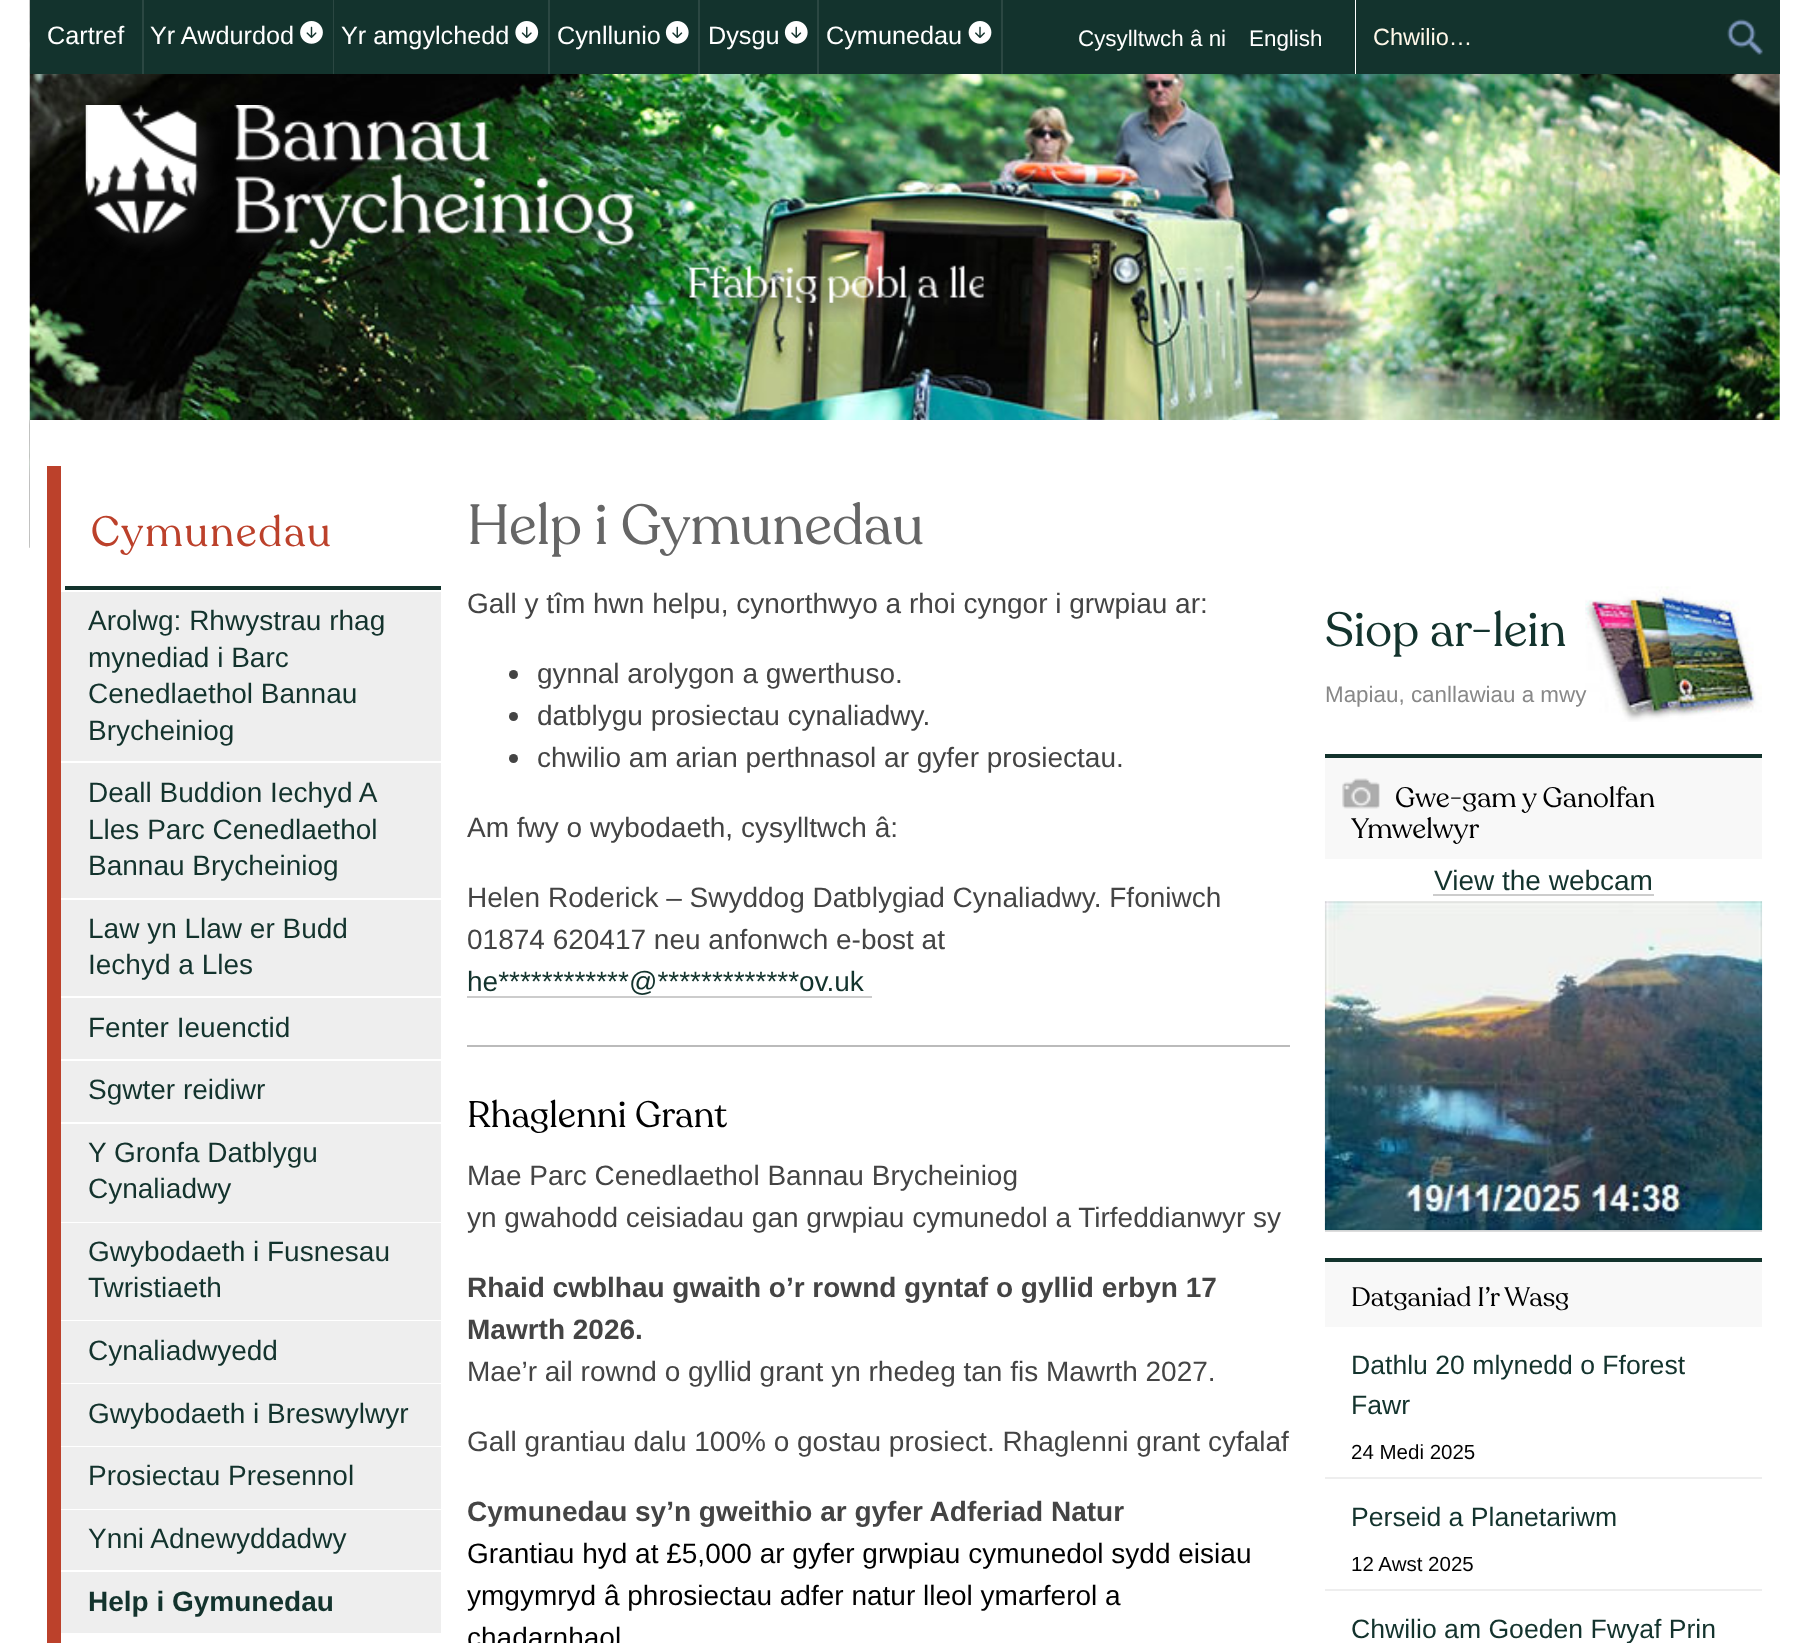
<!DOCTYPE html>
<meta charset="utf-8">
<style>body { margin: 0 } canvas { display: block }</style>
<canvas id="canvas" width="1808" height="1643"></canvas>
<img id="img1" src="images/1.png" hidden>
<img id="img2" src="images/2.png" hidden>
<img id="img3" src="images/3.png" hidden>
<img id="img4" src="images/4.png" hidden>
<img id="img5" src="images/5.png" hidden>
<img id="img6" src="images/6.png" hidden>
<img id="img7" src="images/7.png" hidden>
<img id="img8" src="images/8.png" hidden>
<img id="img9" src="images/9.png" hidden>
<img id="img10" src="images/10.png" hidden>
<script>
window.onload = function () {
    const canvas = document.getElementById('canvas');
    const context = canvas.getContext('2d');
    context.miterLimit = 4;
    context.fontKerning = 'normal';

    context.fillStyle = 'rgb(255, 255, 255)';
    context.fillRect(0, 0, 1808, 1643);
    context.drawImage(document.getElementById('img1'), 29, 0, 1751, 548);
    context.fillStyle = 'rgb(19, 51, 45)';
    context.fillRect(30, 0, 1750, 74);
    context.fillStyle = 'rgb(43, 71, 66)';
    context.fillRect(142, 0, 2, 74);
    context.fillRect(333, 0, 1, 74);
    context.drawImage(document.getElementById('img2'), 300, 21, 23, 23);
    context.fillRect(548, 0, 2, 74);
    context.drawImage(document.getElementById('img3'), 515, 21, 24, 23);
    context.fillRect(698, 0, 2, 74);
    context.drawImage(document.getElementById('img4'), 665, 21, 24, 23);
    context.fillRect(817, 0, 2, 74);
    context.drawImage(document.getElementById('img4'), 784, 21, 24, 23);
    context.fillRect(1001, 0, 2, 74);
    context.drawImage(document.getElementById('img5'), 968, 21, 24, 23);
    context.fillStyle = 'rgb(255, 255, 255)';
    context.fillRect(1355, 0, 1, 74);
    context.drawImage(document.getElementById('img6'), 1727, 19, 36, 36);
    context.drawImage(document.getElementById('img7'), 85, 105, 907, 217);
    context.fillRect(30, 420, 1750, 128);
    context.fillStyle = 'rgb(188, 65, 43)';
    context.fillRect(47, 466, 14, 1177);
    context.fillStyle = 'rgb(19, 51, 45)';
    context.fillRect(65, 586, 376, 4);
    context.fillStyle = 'rgb(238, 238, 238)';
    context.fillRect(61, 592, 380, 169);
    context.fillRect(61, 763, 380, 135);
    context.fillRect(61, 900, 380, 96);
    context.fillRect(61, 998, 380, 61);
    context.fillRect(61, 1061, 380, 61);
    context.fillRect(61, 1124, 380, 98);
    context.fillRect(61, 1223, 380, 97);
    context.fillRect(61, 1321, 380, 62);
    context.fillRect(61, 1384, 380, 62);
    context.fillRect(61, 1447, 380, 62);
    context.fillRect(61, 1510, 380, 60);
    context.fillRect(61, 1572, 380, 61);
    context.fillStyle = 'rgb(68, 68, 68)';
    context.beginPath();
    context.arc(513.5, 674.5, 4.5, 0, 2 * Math.PI);
    context.fill();
    context.beginPath();
    context.arc(513.5, 716.5, 4.5, 0, 2 * Math.PI);
    context.fill();
    context.beginPath();
    context.arc(513.5, 758.5, 4.5, 0, 2 * Math.PI);
    context.fill();
    context.fillStyle = 'rgb(204, 204, 204)';
    context.fillRect(467, 996, 405, 2);
    context.fillStyle = 'rgb(187, 187, 187)';
    context.fillRect(467, 1045, 823, 2);
    context.drawImage(document.getElementById('img8'), 1585, 586, 177, 136);
    context.fillStyle = 'rgb(19, 51, 45)';
    context.fillRect(1325, 754, 437, 4);
    context.fillStyle = 'rgb(221, 221, 221)';
    context.fillRect(1325, 1230, 437, 2);
    context.fillStyle = 'rgb(248, 248, 248)';
    context.fillRect(1325, 758, 437, 101);
    context.drawImage(document.getElementById('img9'), 1342, 778, 38, 31);
    context.fillStyle = 'rgb(204, 204, 204)';
    context.fillRect(1433, 894, 221, 2);
    context.drawImage(document.getElementById('img10'), 1324, 901, 439, 330);
    context.fillStyle = 'rgb(19, 51, 45)';
    context.fillRect(1325, 1258, 437, 4);
    context.fillStyle = 'rgb(248, 248, 248)';
    context.fillRect(1325, 1262, 437, 65);
    context.fillStyle = 'rgb(238, 238, 238)';
    context.fillRect(1325, 1477, 437, 2);
    context.fillRect(1325, 1589, 437, 2);
    context.font = '25.25px Liberation Sans';
    context.fillStyle = 'rgb(255, 255, 255)';
    context.fillText('Cartref', 47, 44);
    context.fillText('Yr Awdurdod', 150, 44);
    context.fillText('Yr amgylchedd', 341, 44);
    context.fillText('Cynllunio', 557, 44);
    context.fillText('Dysgu', 708, 44);
    context.fillText('Cymunedau', 826, 44);
    context.font = '22.4px Liberation Sans';
    context.fillText('Cysylltwch â ni', 1078, 46);
    context.fillText('English', 1249, 46);
    context.font = '23.5px Liberation Sans';
    context.fillStyle = 'rgb(255, 247, 232)';
    context.fillText('Chwilio…', 1373, 45);
    context.letterSpacing = '1.75px';
    context.font = '42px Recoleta';
    context.fillStyle = 'rgb(188, 65, 43)';
    context.fillText('Cymunedau', 91, 546);
    context.letterSpacing = '0px';
    context.font = '28px Liberation Sans';
    context.fillStyle = 'rgb(19, 51, 45)';
    context.fillText('Arolwg: Rhwystrau rhag', 88, 630);
    context.fillText('mynediad i Barc', 88, 667);
    context.fillText('Cenedlaethol Bannau', 88, 703);
    context.fillText('Brycheiniog', 88, 740);
    context.fillText('Deall Buddion Iechyd A', 88, 802);
    context.fillText('Lles Parc Cenedlaethol', 88, 839);
    context.fillText('Bannau Brycheiniog', 88, 875);
    context.fillText('Law yn Llaw er Budd', 88, 938);
    context.fillText('Iechyd a Lles', 88, 974);
    context.fillText('Fenter Ieuenctid', 88, 1037);
    context.fillText('Sgwter reidiwr', 88, 1099);
    context.fillText('Y Gronfa Datblygu', 88, 1162);
    context.fillText('Cynaliadwy', 88, 1198);
    context.fillText('Gwybodaeth i Fusnesau', 88, 1261);
    context.fillText('Twristiaeth', 88, 1297);
    context.fillText('Cynaliadwyedd', 88, 1360);
    context.fillText('Gwybodaeth i Breswylwyr', 88, 1423);
    context.fillText('Prosiectau Presennol', 88, 1485);
    context.fillText('Ynni Adnewyddadwy', 88, 1548);
    context.font = 'bold 28px Liberation Sans';
    context.fillText('Help i Gymunedau', 88, 1611);
    context.font = '56px Recoleta';
    context.fillStyle = 'rgb(102, 102, 102)';
    context.fillText('Help i Gymunedau', 467, 544);
    context.font = '28px Liberation Sans';
    context.fillStyle = 'rgb(68, 68, 68)';
    context.fillText('Gall y tîm hwn helpu, cynorthwyo a rhoi cyngor i grwpiau ar:', 467, 613);
    context.fillText('gynnal arolygon a gwerthuso.', 537, 683);
    context.fillText('datblygu prosiectau cynaliadwy.', 537, 725);
    context.fillText('chwilio am arian perthnasol ar gyfer prosiectau.', 537, 767);
    context.fillText('Am fwy o wybodaeth, cysylltwch â:', 467, 837);
    context.fillText('Helen Roderick – Swyddog Datblygiad Cynaliadwy. Ffoniwch', 467, 907);
    context.fillText('01874 620417 neu anfonwch e-bost at', 467, 949);
    context.fillStyle = 'rgb(19, 51, 45)';
    context.fillText('he************', 467, 991);
    context.fillText('@*************', 629, 991);
    context.fillText('ov.uk', 799, 991);
    context.font = '36.5px Recoleta';
    context.fillStyle = 'rgb(0, 0, 0)';
    context.fillText('Rhaglenni Grant', 467, 1127);
    context.font = '28px Liberation Sans';
    context.fillStyle = 'rgb(68, 68, 68)';
    context.fillText('Mae Parc Cenedlaethol Bannau Brycheiniog', 467, 1185);
    context.fillText('yn gwahodd ceisiadau gan grwpiau cymunedol a Tirfeddianwyr sy', 467, 1227);
    context.font = 'bold 28px Liberation Sans';
    context.fillText('Rhaid cwblhau gwaith o’r rownd gyntaf o gyllid erbyn 17', 467, 1297);
    context.fillText('Mawrth 2026.', 467, 1339);
    context.font = '28px Liberation Sans';
    context.fillText('Mae’r ail rownd o gyllid grant yn rhedeg tan fis Mawrth 2027.', 467, 1381);
    context.fillText('Gall grantiau dalu 100% o gostau prosiect. Rhaglenni grant cyfalaf', 467, 1451);
    context.font = 'bold 28px Liberation Sans';
    context.fillText('Cymunedau sy’n gweithio ar gyfer Adferiad Natur', 467, 1521);
    context.font = '28px Liberation Sans';
    context.fillStyle = 'rgb(0, 0, 0)';
    context.fillText('Grantiau hyd at £5,000 ar gyfer grwpiau cymunedol sydd eisiau', 467, 1563);
    context.fillText('ymgymryd â phrosiectau adfer natur lleol ymarferol a', 467, 1605);
    context.fillText('chadarnhaol', 467, 1647);
    context.font = '47.5px Recoleta';
    context.fillStyle = 'rgb(19, 51, 45)';
    context.fillText('Siop ar-lein', 1325, 646);
    context.font = '22.4px Liberation Sans';
    context.fillStyle = 'rgb(136, 136, 136)';
    context.fillText('Mapiau, canllawiau a mwy', 1325, 702);
    context.font = '28px Recoleta';
    context.fillStyle = 'rgb(0, 0, 0)';
    context.fillText('Gwe-gam y Ganolfan', 1395, 807);
    context.fillText('Ymwelwyr', 1351, 838);
    context.font = '28px Liberation Sans';
    context.fillStyle = 'rgb(19, 51, 45)';
    context.fillText('View the webcam', 1434, 890);
    context.font = '26.6px Recoleta';
    context.fillStyle = 'rgb(0, 0, 0)';
    context.fillText('Datganiad I’r Wasg', 1351, 1306);
    context.font = '26.6px Liberation Sans';
    context.fillStyle = 'rgb(19, 51, 45)';
    context.fillText('Dathlu 20 mlynedd o Fforest', 1351, 1374);
    context.fillText('Fawr', 1351, 1414);
    context.font = '20.5px Liberation Sans';
    context.fillStyle = 'rgb(0, 0, 0)';
    context.fillText('24 Medi 2025', 1351, 1459);
    context.font = '26.6px Liberation Sans';
    context.fillStyle = 'rgb(19, 51, 45)';
    context.fillText('Perseid a Planetariwm', 1351, 1526);
    context.font = '20.5px Liberation Sans';
    context.fillStyle = 'rgb(0, 0, 0)';
    context.fillText('12 Awst 2025', 1351, 1571);
    context.font = '26.6px Liberation Sans';
    context.fillStyle = 'rgb(19, 51, 45)';
    context.fillText('Chwilio am Goeden Fwyaf Prin', 1351, 1638);
};
</script>
